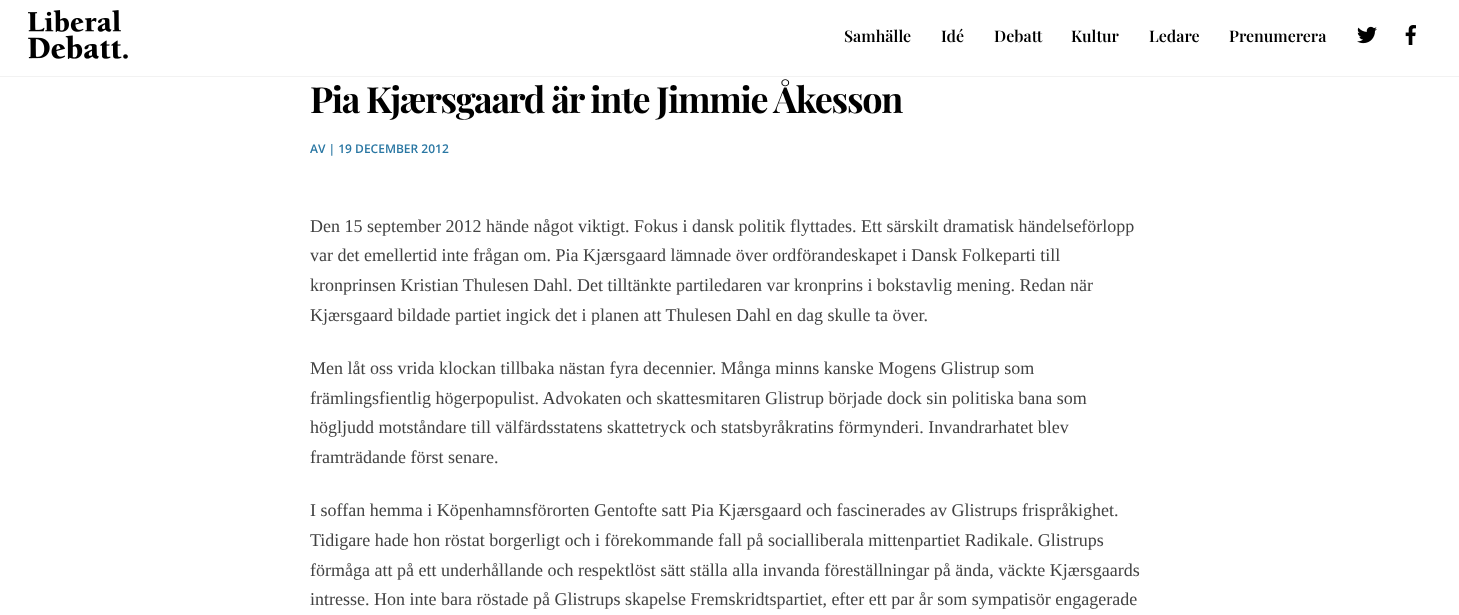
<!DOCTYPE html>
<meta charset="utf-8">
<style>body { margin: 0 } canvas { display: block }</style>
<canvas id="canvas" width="1459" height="615"></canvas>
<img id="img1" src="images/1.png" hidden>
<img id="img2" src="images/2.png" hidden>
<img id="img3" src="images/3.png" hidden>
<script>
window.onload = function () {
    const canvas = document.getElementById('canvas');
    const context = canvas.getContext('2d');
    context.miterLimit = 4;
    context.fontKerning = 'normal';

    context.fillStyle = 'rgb(255, 255, 255)';
    context.fillRect(0, 0, 1459, 615);
    context.fillStyle = 'rgb(242, 242, 242)';
    context.fillRect(0, 76, 1459, 1);
    context.drawImage(document.getElementById('img1'), 28, 10, 100, 49);
    context.drawImage(document.getElementById('img2'), 1357, 26, 20, 18);
    context.drawImage(document.getElementById('img3'), 1405, 25, 11, 20);
    context.font = '600 16px Playfair Display';
    context.fillStyle = 'rgb(0, 0, 0)';
    context.fillText('Samhälle', 844, 42);
    context.fillText('Idé', 941, 42);
    context.fillText('Debatt', 994, 42);
    context.fillText('Kultur', 1071, 42);
    context.fillText('Ledare', 1149, 42);
    context.fillText('Prenumerera', 1229, 42);
    context.letterSpacing = '-1.3px';
    context.font = 'bold 36px Playfair Display';
    context.fillText('Pia Kjærsgaard är inte Jimmie Åkesson', 310, 113);
    context.letterSpacing = '0px';
    context.font = '600 12px Open Sans';
    context.fillStyle = 'rgb(42, 119, 163)';
    context.fillText('AV | 19 DECEMBER 2012', 310, 153);
    context.font = '18px Liberation Serif';
    context.fillStyle = 'rgb(66, 66, 66)';
    context.fillText('Den 15 september 2012 hände något viktigt. Fokus i dansk politik flyttades. Ett särskilt dramatisk händelseförlopp', 310, 232);
    context.fillText('var det emellertid inte frågan om. Pia Kjærsgaard lämnade över ordförandeskapet i Dansk Folkeparti till', 310, 261);
    context.fillText('kronprinsen Kristian Thulesen Dahl. Det tilltänkte partiledaren var kronprins i bokstavlig mening. Redan när', 310, 291);
    context.fillText('Kjærsgaard bildade partiet ingick det i planen att Thulesen Dahl en dag skulle ta över.', 310, 321);
    context.fillText('Men låt oss vrida klockan tillbaka nästan fyra decennier. Många minns kanske Mogens Glistrup som', 310, 374);
    context.fillText('främlingsfientlig högerpopulist. Advokaten och skattesmitaren Glistrup började dock sin politiska bana som', 310, 404);
    context.fillText('högljudd motståndare till välfärdsstatens skattetryck och statsbyråkratins förmynderi. Invandrarhatet blev', 310, 433);
    context.fillText('framträdande först senare.', 310, 463);
    context.fillText('I soffan hemma i Köpenhamnsförorten Gentofte satt Pia Kjærsgaard och fascinerades av Glistrups frispråkighet.', 310, 516);
    context.fillText('Tidigare hade hon röstat borgerligt och i förekommande fall på socialliberala mittenpartiet Radikale. Glistrups', 310, 546);
    context.fillText('förmåga att på ett underhållande och respektlöst sätt ställa alla invanda föreställningar på ända, väckte Kjærsgaards', 310, 576);
    context.fillText('intresse. Hon inte bara röstade på Glistrups skapelse Fremskridtspartiet, efter ett par år som sympatisör engagerade', 310, 605);
};
</script>
